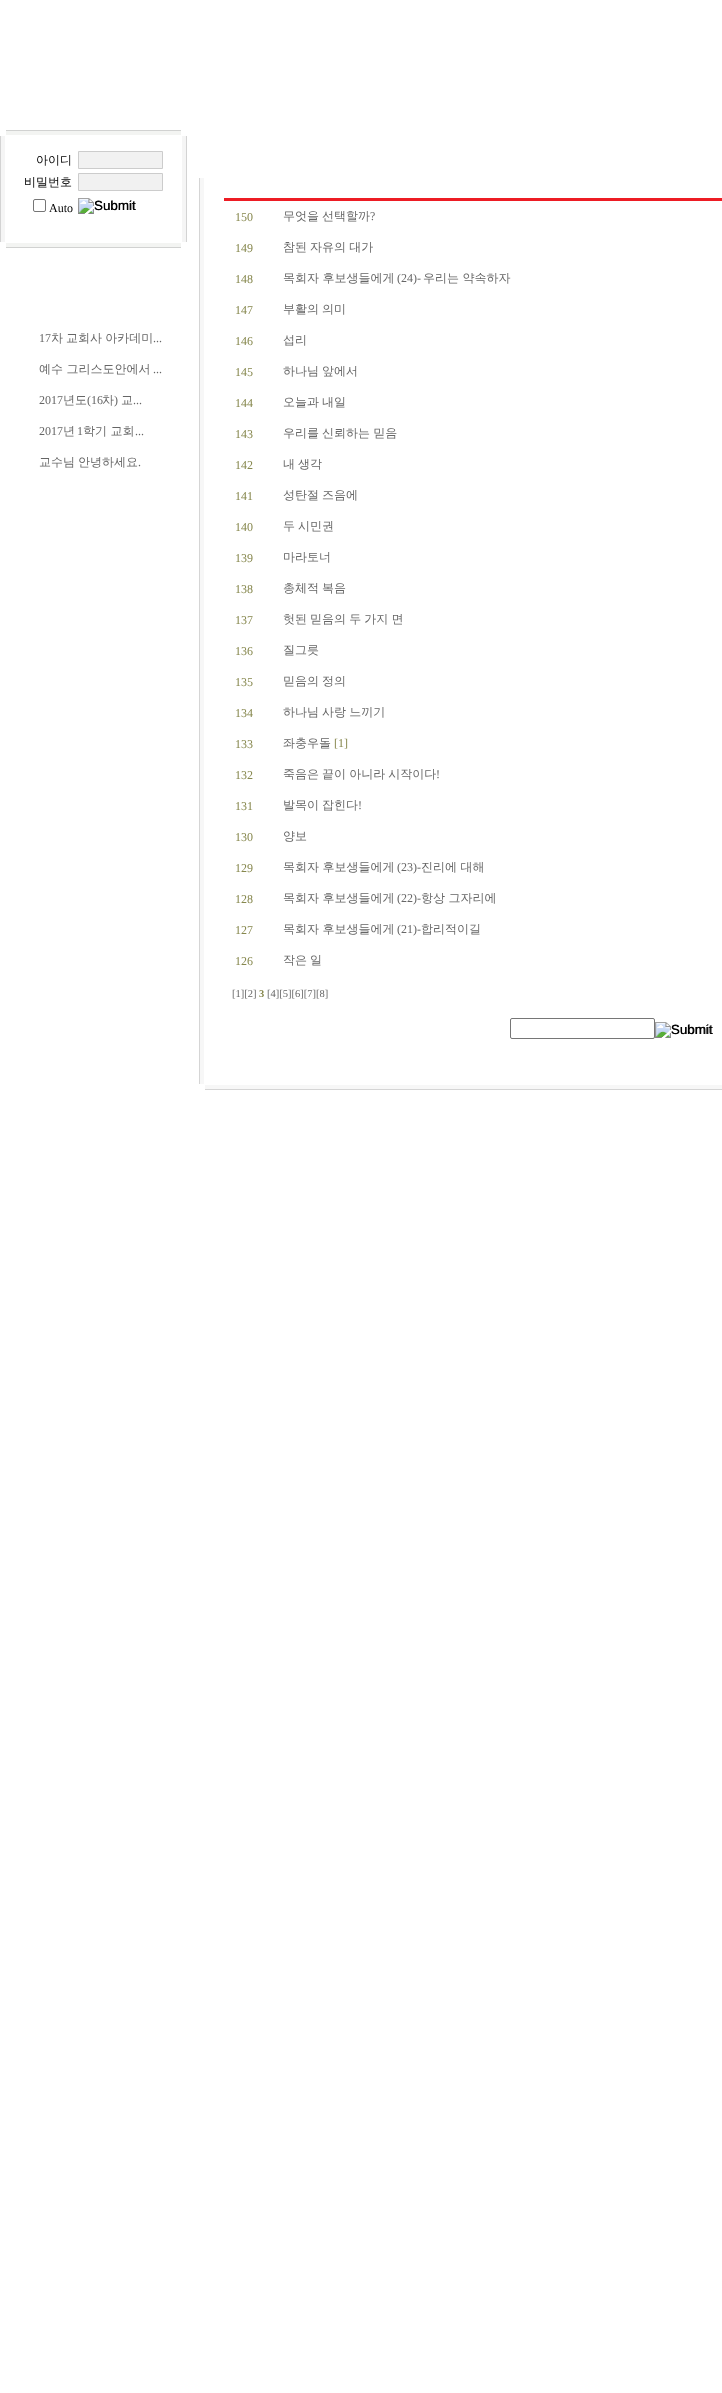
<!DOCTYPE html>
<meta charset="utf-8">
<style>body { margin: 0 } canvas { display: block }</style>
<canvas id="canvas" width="722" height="2393"></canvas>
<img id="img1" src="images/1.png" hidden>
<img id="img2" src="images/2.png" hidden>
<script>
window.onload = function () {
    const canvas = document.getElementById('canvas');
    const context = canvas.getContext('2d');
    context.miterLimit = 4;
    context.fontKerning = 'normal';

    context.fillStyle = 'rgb(255, 255, 255)';
    context.fillRect(0, 0, 722, 2393);
    context.fillStyle = 'rgb(209, 210, 209)';
    context.fillRect(6, 130, 175, 1);
    context.fillStyle = 'rgb(243, 244, 242)';
    context.fillRect(6, 131, 175, 4);
    context.fillStyle = 'rgb(211, 211, 211)';
    context.fillRect(0, 136, 1, 106);
    context.fillStyle = 'rgb(245, 245, 245)';
    context.fillRect(1, 136, 4, 106);
    context.fillStyle = 'rgb(241, 241, 241)';
    context.beginPath();
    context.rect(78.5, 151.5, 84, 17);
    context.fill();
    context.strokeStyle = 'rgb(204, 204, 204)';
    context.stroke();
    context.beginPath();
    context.rect(78.5, 173.5, 84, 17);
    context.fill();
    context.stroke();
    context.beginPath();
    context.roundRect(33.5, 199.5, 12, 12, 1.5);
    context.strokeStyle = 'rgb(118, 118, 118)';
    context.stroke();
    context.drawImage(document.getElementById('img1'), 78, 198, 57, 16);
    context.fillStyle = 'rgb(245, 245, 245)';
    context.fillRect(182, 136, 4, 106);
    context.fillStyle = 'rgb(211, 211, 211)';
    context.fillRect(186, 136, 1, 106);
    context.fillStyle = 'rgb(243, 244, 242)';
    context.fillRect(6, 243, 175, 4);
    context.fillStyle = 'rgb(209, 210, 209)';
    context.fillRect(6, 247, 175, 1);
    context.fillStyle = 'rgb(213, 213, 213)';
    context.fillRect(199, 178, 1, 906);
    context.fillStyle = 'rgb(247, 247, 247)';
    context.fillRect(200, 178, 4, 906);
    context.fillStyle = 'rgb(237, 28, 36)';
    context.fillRect(224, 198, 498, 3);
    context.beginPath();
    context.roundRect(510.5, 1018.5, 144, 20, 1.5);
    context.stroke();
    context.drawImage(document.getElementById('img2'), 655, 1022, 57, 16);
    context.fillStyle = 'rgb(247, 247, 247)';
    context.fillRect(205, 1085, 517, 4);
    context.fillStyle = 'rgb(213, 213, 213)';
    context.fillRect(205, 1089, 517, 1);
    context.font = '500 12px WenQuanYi Zen Hei';
    context.fillStyle = 'rgb(0, 0, 0)';
    context.fillText('아이디', 36, 164);
    context.fillText('비밀번호', 24, 186);
    context.font = '12px Liberation Serif';
    context.fillText('Auto', 49, 212);
    context.font = '13.5px Liberation Sans';
    context.fillText('Submit', 94, 210);
    context.font = '12px Liberation Serif';
    context.fillStyle = 'rgb(102, 102, 102)';
    context.fillText('17', 39, 342);
    context.wordSpacing = '-0.5px';
    context.font = '500 12px WenQuanYi Zen Hei';
    context.fillText('차 교회사 아카데미', 51, 342);
    context.wordSpacing = '0px';
    context.font = '12px Liberation Serif';
    context.fillText('...', 153, 342);
    context.font = '500 12px WenQuanYi Zen Hei';
    context.fillText('예수 그리스도안에서', 39, 373);
    context.font = '12px Liberation Serif';
    context.fillText('...', 153, 373);
    context.fillText('2017', 39, 404);
    context.font = '500 12px WenQuanYi Zen Hei';
    context.fillText('년도', 63, 404);
    context.font = '12px Liberation Serif';
    context.fillText('(16', 87, 404);
    context.font = '500 12px WenQuanYi Zen Hei';
    context.fillText('차', 102, 404);
    context.font = '12px Liberation Serif';
    context.fillText(')', 114, 404);
    context.font = '500 12px WenQuanYi Zen Hei';
    context.fillText('교', 121, 404);
    context.font = '12px Liberation Serif';
    context.fillText('...', 133, 404);
    context.fillText('2017', 39, 435);
    context.font = '500 12px WenQuanYi Zen Hei';
    context.fillText('년', 63, 435);
    context.font = '12px Liberation Serif';
    context.fillText('1', 77, 435);
    context.font = '500 12px WenQuanYi Zen Hei';
    context.fillText('학기 교회', 83, 435);
    context.font = '12px Liberation Serif';
    context.fillText('...', 135, 435);
    context.wordSpacing = '-0.5px';
    context.font = '500 12px WenQuanYi Zen Hei';
    context.fillText('교수님 안녕하세요', 39, 466);
    context.wordSpacing = '0px';
    context.font = '12px Liberation Serif';
    context.fillText('.', 138, 466);
    context.fillStyle = 'rgb(134, 135, 77)';
    context.fillText('150', 235, 221);
    context.wordSpacing = '-0.5px';
    context.font = '500 12px WenQuanYi Zen Hei';
    context.fillStyle = 'rgb(102, 102, 102)';
    context.fillText('무엇을 선택할까', 283, 220);
    context.wordSpacing = '0px';
    context.font = '12px Liberation Serif';
    context.fillText('?', 370, 220);
    context.fillStyle = 'rgb(134, 135, 77)';
    context.fillText('149', 235, 252);
    context.wordSpacing = '-0.5px';
    context.font = '500 12px WenQuanYi Zen Hei';
    context.fillStyle = 'rgb(102, 102, 102)';
    context.fillText('참된 자유의 대가', 283, 251);
    context.wordSpacing = '0px';
    context.font = '12px Liberation Serif';
    context.fillStyle = 'rgb(134, 135, 77)';
    context.fillText('148', 235, 283);
    context.font = '500 12px WenQuanYi Zen Hei';
    context.fillStyle = 'rgb(102, 102, 102)';
    context.fillText('목회자 후보생들에게', 283, 282);
    context.font = '12px Liberation Serif';
    context.fillText('(24)-', 397, 282);
    context.font = '500 12px WenQuanYi Zen Hei';
    context.fillText('우리는 약속하자', 423, 282);
    context.font = '12px Liberation Serif';
    context.fillStyle = 'rgb(134, 135, 77)';
    context.fillText('147', 235, 314);
    context.wordSpacing = '-0.5px';
    context.font = '500 12px WenQuanYi Zen Hei';
    context.fillStyle = 'rgb(102, 102, 102)';
    context.fillText('부활의 의미', 283, 313);
    context.wordSpacing = '0px';
    context.font = '12px Liberation Serif';
    context.fillStyle = 'rgb(134, 135, 77)';
    context.fillText('146', 235, 345);
    context.font = '500 12px WenQuanYi Zen Hei';
    context.fillStyle = 'rgb(102, 102, 102)';
    context.fillText('섭리', 283, 344);
    context.font = '12px Liberation Serif';
    context.fillStyle = 'rgb(134, 135, 77)';
    context.fillText('145', 235, 376);
    context.wordSpacing = '-0.5px';
    context.font = '500 12px WenQuanYi Zen Hei';
    context.fillStyle = 'rgb(102, 102, 102)';
    context.fillText('하나님 앞에서', 283, 375);
    context.wordSpacing = '0px';
    context.font = '12px Liberation Serif';
    context.fillStyle = 'rgb(134, 135, 77)';
    context.fillText('144', 235, 407);
    context.wordSpacing = '-0.5px';
    context.font = '500 12px WenQuanYi Zen Hei';
    context.fillStyle = 'rgb(102, 102, 102)';
    context.fillText('오늘과 내일', 283, 406);
    context.wordSpacing = '0px';
    context.font = '12px Liberation Serif';
    context.fillStyle = 'rgb(134, 135, 77)';
    context.fillText('143', 235, 438);
    context.wordSpacing = '-0.5px';
    context.font = '500 12px WenQuanYi Zen Hei';
    context.fillStyle = 'rgb(102, 102, 102)';
    context.fillText('우리를 신뢰하는 믿음', 283, 437);
    context.wordSpacing = '0px';
    context.font = '12px Liberation Serif';
    context.fillStyle = 'rgb(134, 135, 77)';
    context.fillText('142', 235, 469);
    context.wordSpacing = '-0.5px';
    context.font = '500 12px WenQuanYi Zen Hei';
    context.fillStyle = 'rgb(102, 102, 102)';
    context.fillText('내 생각', 283, 468);
    context.wordSpacing = '0px';
    context.font = '12px Liberation Serif';
    context.fillStyle = 'rgb(134, 135, 77)';
    context.fillText('141', 235, 500);
    context.wordSpacing = '-0.5px';
    context.font = '500 12px WenQuanYi Zen Hei';
    context.fillStyle = 'rgb(102, 102, 102)';
    context.fillText('성탄절 즈음에', 283, 499);
    context.wordSpacing = '0px';
    context.font = '12px Liberation Serif';
    context.fillStyle = 'rgb(134, 135, 77)';
    context.fillText('140', 235, 531);
    context.wordSpacing = '-0.5px';
    context.font = '500 12px WenQuanYi Zen Hei';
    context.fillStyle = 'rgb(102, 102, 102)';
    context.fillText('두 시민권', 283, 530);
    context.wordSpacing = '0px';
    context.font = '12px Liberation Serif';
    context.fillStyle = 'rgb(134, 135, 77)';
    context.fillText('139', 235, 562);
    context.font = '500 12px WenQuanYi Zen Hei';
    context.fillStyle = 'rgb(102, 102, 102)';
    context.fillText('마라토너', 283, 561);
    context.font = '12px Liberation Serif';
    context.fillStyle = 'rgb(134, 135, 77)';
    context.fillText('138', 235, 593);
    context.wordSpacing = '-0.5px';
    context.font = '500 12px WenQuanYi Zen Hei';
    context.fillStyle = 'rgb(102, 102, 102)';
    context.fillText('총체적 복음', 283, 592);
    context.wordSpacing = '0px';
    context.font = '12px Liberation Serif';
    context.fillStyle = 'rgb(134, 135, 77)';
    context.fillText('137', 235, 624);
    context.wordSpacing = '-0.5px';
    context.font = '500 12px WenQuanYi Zen Hei';
    context.fillStyle = 'rgb(102, 102, 102)';
    context.fillText('헛된 믿음의 두 가지 면', 283, 623);
    context.wordSpacing = '0px';
    context.font = '12px Liberation Serif';
    context.fillStyle = 'rgb(134, 135, 77)';
    context.fillText('136', 235, 655);
    context.font = '500 12px WenQuanYi Zen Hei';
    context.fillStyle = 'rgb(102, 102, 102)';
    context.fillText('질그릇', 283, 654);
    context.font = '12px Liberation Serif';
    context.fillStyle = 'rgb(134, 135, 77)';
    context.fillText('135', 235, 686);
    context.wordSpacing = '-0.5px';
    context.font = '500 12px WenQuanYi Zen Hei';
    context.fillStyle = 'rgb(102, 102, 102)';
    context.fillText('믿음의 정의', 283, 685);
    context.wordSpacing = '0px';
    context.font = '12px Liberation Serif';
    context.fillStyle = 'rgb(134, 135, 77)';
    context.fillText('134', 235, 717);
    context.wordSpacing = '-0.5px';
    context.font = '500 12px WenQuanYi Zen Hei';
    context.fillStyle = 'rgb(102, 102, 102)';
    context.fillText('하나님 사랑 느끼기', 283, 716);
    context.wordSpacing = '0px';
    context.font = '12px Liberation Serif';
    context.fillStyle = 'rgb(134, 135, 77)';
    context.fillText('133', 235, 748);
    context.font = '500 12px WenQuanYi Zen Hei';
    context.fillStyle = 'rgb(102, 102, 102)';
    context.fillText('좌충우돌', 283, 747);
    context.font = '12px Liberation Serif';
    context.fillStyle = 'rgb(134, 135, 77)';
    context.fillText('[1]', 334, 747);
    context.fillText('132', 235, 779);
    context.wordSpacing = '-0.5px';
    context.font = '500 12px WenQuanYi Zen Hei';
    context.fillStyle = 'rgb(102, 102, 102)';
    context.fillText('죽음은 끝이 아니라 시작이다', 283, 778);
    context.wordSpacing = '0px';
    context.font = '12px Liberation Serif';
    context.fillText('!', 436, 778);
    context.fillStyle = 'rgb(134, 135, 77)';
    context.fillText('131', 235, 810);
    context.wordSpacing = '-0.5px';
    context.font = '500 12px WenQuanYi Zen Hei';
    context.fillStyle = 'rgb(102, 102, 102)';
    context.fillText('발목이 잡힌다', 283, 809);
    context.wordSpacing = '0px';
    context.font = '12px Liberation Serif';
    context.fillText('!', 358, 809);
    context.fillStyle = 'rgb(134, 135, 77)';
    context.fillText('130', 235, 841);
    context.font = '500 12px WenQuanYi Zen Hei';
    context.fillStyle = 'rgb(102, 102, 102)';
    context.fillText('양보', 283, 840);
    context.font = '12px Liberation Serif';
    context.fillStyle = 'rgb(134, 135, 77)';
    context.fillText('129', 235, 872);
    context.font = '500 12px WenQuanYi Zen Hei';
    context.fillStyle = 'rgb(102, 102, 102)';
    context.fillText('목회자 후보생들에게', 283, 871);
    context.font = '12px Liberation Serif';
    context.fillText('(23)-', 397, 871);
    context.font = '500 12px WenQuanYi Zen Hei';
    context.fillText('진리에 대해', 421, 871);
    context.font = '12px Liberation Serif';
    context.fillStyle = 'rgb(134, 135, 77)';
    context.fillText('128', 235, 903);
    context.font = '500 12px WenQuanYi Zen Hei';
    context.fillStyle = 'rgb(102, 102, 102)';
    context.fillText('목회자 후보생들에게', 283, 902);
    context.font = '12px Liberation Serif';
    context.fillText('(22)-', 397, 902);
    context.font = '500 12px WenQuanYi Zen Hei';
    context.fillText('항상 그자리에', 421, 902);
    context.font = '12px Liberation Serif';
    context.fillStyle = 'rgb(134, 135, 77)';
    context.fillText('127', 235, 934);
    context.font = '500 12px WenQuanYi Zen Hei';
    context.fillStyle = 'rgb(102, 102, 102)';
    context.fillText('목회자 후보생들에게', 283, 933);
    context.font = '12px Liberation Serif';
    context.fillText('(21)-', 397, 933);
    context.font = '500 12px WenQuanYi Zen Hei';
    context.fillText('합리적이길', 421, 933);
    context.font = '12px Liberation Serif';
    context.fillStyle = 'rgb(134, 135, 77)';
    context.fillText('126', 235, 965);
    context.wordSpacing = '-0.5px';
    context.font = '500 12px WenQuanYi Zen Hei';
    context.fillStyle = 'rgb(102, 102, 102)';
    context.fillText('작은 일', 283, 964);
    context.wordSpacing = '0px';
    context.font = '10.5px Liberation Serif';
    context.fillText('[1][2]', 232, 997);
    context.font = 'bold 10.5px Liberation Serif';
    context.fillStyle = 'rgb(134, 135, 77)';
    context.fillText('3', 259, 997);
    context.font = '10.5px Liberation Serif';
    context.fillStyle = 'rgb(102, 102, 102)';
    context.fillText('[4][5][6][7][8]', 267, 997);
    context.font = '13.5px Liberation Sans';
    context.fillStyle = 'rgb(0, 0, 0)';
    context.fillText('Submit', 671, 1034);
};
</script>
